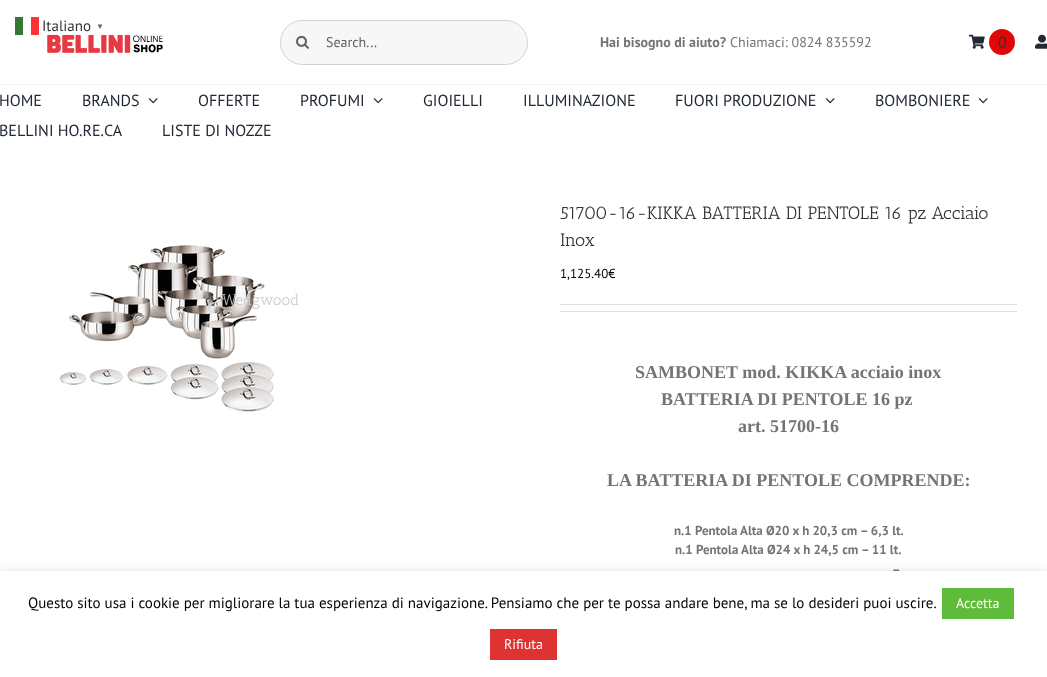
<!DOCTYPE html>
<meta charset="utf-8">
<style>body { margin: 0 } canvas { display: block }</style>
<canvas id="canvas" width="1047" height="677"></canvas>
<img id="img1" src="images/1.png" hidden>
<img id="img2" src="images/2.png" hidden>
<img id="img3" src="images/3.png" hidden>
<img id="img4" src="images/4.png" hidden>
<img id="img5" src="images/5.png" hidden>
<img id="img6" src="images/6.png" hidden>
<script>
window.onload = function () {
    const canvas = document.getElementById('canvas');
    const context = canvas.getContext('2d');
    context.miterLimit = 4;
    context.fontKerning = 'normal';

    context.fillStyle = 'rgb(255, 255, 255)';
    context.fillRect(0, 0, 1047, 677);
    context.fillStyle = 'rgb(51, 121, 51)';
    context.fillRect(15, 17, 8, 18);
    context.fillStyle = 'rgb(253, 51, 51)';
    context.fillRect(31, 17, 8, 18);
    context.fillStyle = 'rgba(172, 171, 171, 0.3)';
    context.filter = 'blur(5px)';
    context.beginPath();
    context.rect(0, 570, 1047, 106);
    context.fill();
    context.filter = 'none';
    context.fillStyle = 'rgb(255, 255, 255)';
    context.fillRect(0, 571, 1047, 106);
    context.fillStyle = 'rgb(95, 188, 58)';
    context.fillRect(942, 588, 72, 31);
    context.fillStyle = 'rgb(221, 51, 51)';
    context.fillRect(490, 629, 67, 31);
    context.fillStyle = 'rgb(242, 242, 242)';
    context.fillRect(0, 84, 1047, 1);
    context.drawImage(document.getElementById('img1'), 47, 34, 116, 19);
    context.fillStyle = 'rgb(247, 247, 247)';
    context.beginPath();
    context.roundRect(280.5, 20.5, 247, 44, 22);
    context.fill();
    context.strokeStyle = 'rgb(210, 210, 210)';
    context.stroke();
    context.drawImage(document.getElementById('img2'), 296, 35, 13, 14);
    context.drawImage(document.getElementById('img3'), 969, 34, 16, 15);
    context.fillStyle = 'rgb(225, 7, 7)';
    context.beginPath();
    context.arc(1002, 42, 13, 0, 2 * Math.PI);
    context.fill();
    context.drawImage(document.getElementById('img4'), 1035, 34, 12, 15);
    context.drawImage(document.getElementById('img5'), 148, 98, 10, 6);
    context.drawImage(document.getElementById('img5'), 373, 98, 10, 6);
    context.drawImage(document.getElementById('img5'), 825, 98, 10, 6);
    context.drawImage(document.getElementById('img5'), 978, 98, 10, 6);
    context.drawImage(document.getElementById('img6'), 59, 245, 215, 167);
    context.fillStyle = 'rgb(224, 222, 222)';
    context.fillRect(560, 304, 457, 1);
    context.fillRect(560, 311, 457, 1);
    context.font = '15px PT Sans';
    context.fillStyle = 'rgb(51, 51, 51)';
    context.fillText('Italiano', 42, 31);
    context.font = 'bold 8px Liberation Serif';
    context.fillStyle = 'rgb(102, 102, 102)';
    context.fillText('▼', 96, 29);
    context.font = '15px PT Sans';
    context.fillStyle = 'rgb(0, 0, 0)';
    context.fillText('Questo sito usa i cookie per migliorare la tua esperienza di navigazione. Pensiamo che per te possa andare bene, ma se lo desideri puoi uscire.', 28, 608);
    context.font = '14px PT Sans';
    context.fillStyle = 'rgb(255, 255, 255)';
    context.fillText('Accetta', 956, 608);
    context.fillText('Rifiuta', 504, 649);
    context.fillStyle = 'rgb(96, 96, 96)';
    context.fillText('Search...', 326, 47);
    context.font = 'bold 14px PT Sans';
    context.fillStyle = 'rgb(116, 116, 116)';
    context.fillText('Hai bisogno di aiuto?', 600, 47);
    context.font = '14px PT Sans';
    context.fillText('Chiamaci: 0824 835592', 730, 47);
    context.font = '16px PT Sans';
    context.fillStyle = 'rgb(51, 51, 51)';
    context.fillText('0', 998, 48);
    context.fillStyle = 'rgb(33, 41, 52)';
    context.fillText('HOME', -1, 106);
    context.fillText('BRANDS', 82, 106);
    context.font = '15.5px Antic Slab';
    context.fillStyle = 'rgb(204, 203, 202)';
    context.fillText('Wedgwood', 222, 305);
    context.font = '16px PT Sans';
    context.fillStyle = 'rgb(33, 41, 52)';
    context.fillText('OFFERTE', 198, 106);
    context.fillText('PROFUMI', 300, 106);
    context.fillText('GIOIELLI', 423, 106);
    context.fillText('ILLUMINAZIONE', 523, 106);
    context.fillText('FUORI PRODUZIONE', 675, 106);
    context.fillText('BOMBONIERE', 875, 106);
    context.fillText('BELLINI HO.RE.CA', -1, 136);
    context.fillText('LISTE DI NOZZE', 162, 136);
    context.font = '18px Antic Slab';
    context.fillStyle = 'rgb(51, 51, 51)';
    context.fillText('51700-16-KIKKA BATTERIA DI PENTOLE 16 pz Acciaio', 560, 219);
    context.fillText('Inox', 560, 246);
    context.font = '13px PT Sans';
    context.fillStyle = 'rgb(0, 0, 0)';
    context.fillText('1,125.40€', 560, 278);
    context.font = 'bold 18px Liberation Serif';
    context.fillStyle = 'rgb(116, 116, 116)';
    context.fillText('SAMBONET mod. KIKKA acciaio inox', 635, 378);
    context.fillText('BATTERIA DI PENTOLE 16 pz', 661, 405);
    context.fillText('art. 51700-16', 738, 432);
    context.fillText('LA BATTERIA DI PENTOLE COMPRENDE:', 607, 486);
    context.font = 'bold 13px PT Sans';
    context.fillText('n.1 Pentola Alta Ø20 x h 20,3 cm – 6,3 lt.', 674, 535);
    context.fillText('n.1 Pentola Alta Ø24 x h 24,5 cm – 11 lt.', 675, 554);
    context.fillText('–', 892, 574);
};
</script>
